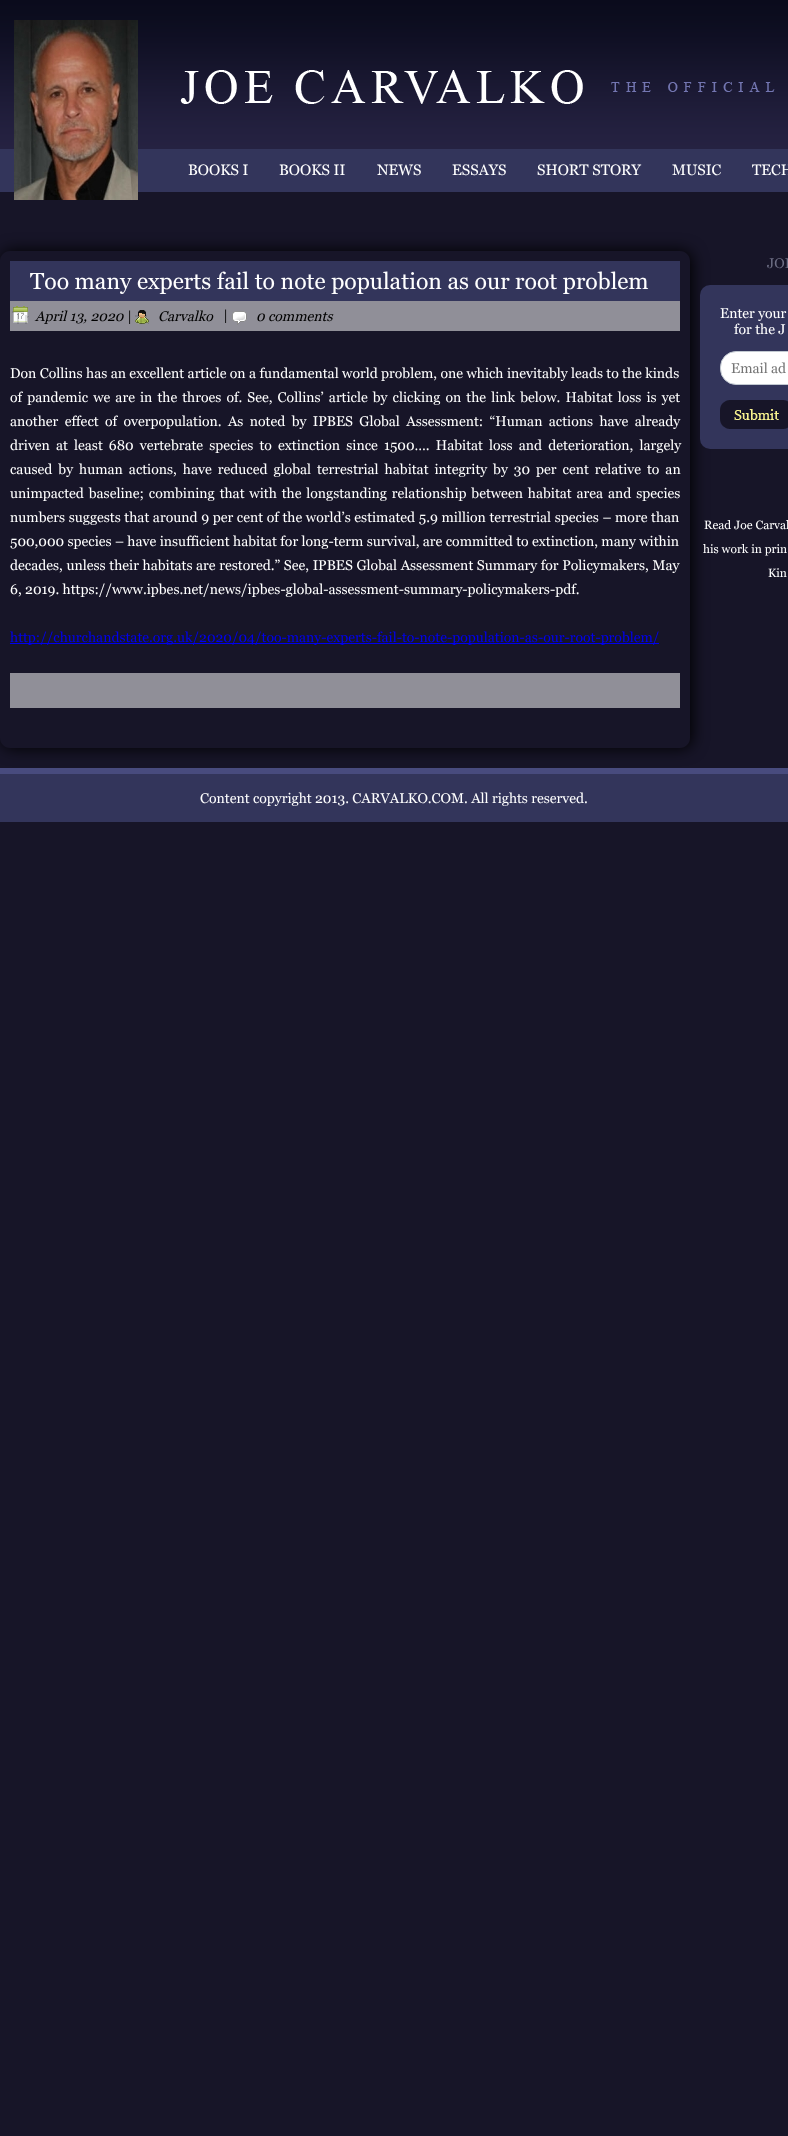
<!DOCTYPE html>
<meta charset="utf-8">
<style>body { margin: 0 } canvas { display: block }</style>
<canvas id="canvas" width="788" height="2136"></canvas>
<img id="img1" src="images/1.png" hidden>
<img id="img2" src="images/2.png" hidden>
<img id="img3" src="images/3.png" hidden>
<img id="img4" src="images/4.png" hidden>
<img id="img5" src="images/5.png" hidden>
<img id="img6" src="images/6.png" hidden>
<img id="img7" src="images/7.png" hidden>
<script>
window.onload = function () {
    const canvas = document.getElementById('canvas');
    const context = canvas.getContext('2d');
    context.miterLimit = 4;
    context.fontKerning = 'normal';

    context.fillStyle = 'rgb(23, 21, 40)';
    context.fillRect(0, 0, 788, 2136);
    context.drawImage(document.getElementById('img1'), 0, 0, 788, 192);
    context.drawImage(document.getElementById('img2'), 14, 20, 124, 180);
    context.drawImage(document.getElementById('img3'), 180, 70, 595, 34);
    context.save();
    context.beginPath();
    context.moveTo(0, 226);
    context.lineTo(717, 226);
    context.lineTo(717, 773);
    context.lineTo(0, 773);
    context.closePath();
    context.moveTo(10, 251);
    context.lineTo(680, 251);
    context.bezierCurveTo(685.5, 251, 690, 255.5, 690, 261);
    context.lineTo(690, 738);
    context.bezierCurveTo(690, 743.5, 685.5, 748, 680, 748);
    context.lineTo(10, 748);
    context.bezierCurveTo(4.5, 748, 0, 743.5, 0, 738);
    context.lineTo(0, 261);
    context.bezierCurveTo(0, 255.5, 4.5, 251, 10, 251);
    context.closePath();
    context.clip('evenodd');
    context.fillStyle = 'rgb(0, 0, 0)';
    context.filter = 'blur(8px)';
    context.beginPath();
    context.roundRect(2, 251, 690, 497, 10);
    context.fill();
    context.filter = 'none';
    context.restore();
    context.fillStyle = 'rgb(51, 53, 91)';
    context.fillRect(10, 261, 670, 40);
    context.fillStyle = 'rgb(144, 143, 152)';
    context.fillRect(10, 301, 670, 30);
    context.drawImage(document.getElementById('img4'), 12, 306, 17, 18);
    context.drawImage(document.getElementById('img5'), 135, 310, 14, 14);
    context.drawImage(document.getElementById('img6'), 232, 311, 15, 14);
    context.fillStyle = 'rgb(0, 0, 238)';
    context.fillRect(10, 643, 649, 1);
    context.fillStyle = 'rgb(144, 143, 152)';
    context.fillRect(10, 673, 670, 35);
    context.fillStyle = 'rgb(51, 53, 91)';
    context.beginPath();
    context.roundRect(700, 285, 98, 164, 10);
    context.fill();
    context.fillStyle = 'rgb(255, 255, 255)';
    context.beginPath();
    context.roundRect(720.5, 351.5, 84, 33, 15.5);
    context.fill();
    context.strokeStyle = 'rgb(194, 201, 209)';
    context.stroke();
    context.drawImage(document.getElementById('img7'), 720, 400, 68, 29);
    context.fillStyle = 'rgb(51, 53, 91)';
    context.fillRect(0, 774, 788, 48);
    context.fillStyle = 'rgb(72, 75, 126)';
    context.fillRect(0, 768, 788, 6);
    context.font = '15px Georgia';
    context.fillStyle = 'rgb(255, 255, 255)';
    context.fillText('BOOKS I', 188, 175);
    context.fillText('BOOKS II', 279, 175);
    context.fillText('NEWS', 377, 175);
    context.fillText('ESSAYS', 452, 175);
    context.fillText('SHORT STORY', 537, 175);
    context.fillText('MUSIC', 672, 175);
    context.fillText('TECH', 752, 175);
    context.font = '23px Georgia';
    context.fillText('Too many experts fail to note population as our root problem', 30, 289);
    context.font = 'italic 14px Georgia';
    context.fillStyle = 'rgb(0, 0, 0)';
    context.fillText('April 13, 2020', 35, 321);
    context.font = '14px Georgia';
    context.fillText('|', 127, 321);
    context.font = 'italic 14px Georgia';
    context.fillText('Carvalko', 158, 321);
    context.font = '14px Georgia';
    context.fillText('|', 223, 320);
    context.font = 'italic 14px Georgia';
    context.fillText('0 comments', 256, 321);
    context.font = '14px Georgia';
    context.fillStyle = 'rgb(255, 255, 255)';
    context.fillText('Don Collins has an excellent article on a fundamental world problem, one which inevitably leads to the kinds', 10, 378);
    context.wordSpacing = '1.7px';
    context.fillText('of pandemic we are in the throes of. See, Collins’ article by clicking on the link below. Habitat loss is yet', 10, 402);
    context.wordSpacing = '3px';
    context.fillText('another effect of overpopulation. As noted by IPBES Global Assessment: “Human actions have already', 10, 426);
    context.wordSpacing = '2.75px';
    context.fillText('driven at least 680 vertebrate species to extinction since 1500…. Habitat loss and deterioration, largely', 10, 450);
    context.wordSpacing = '2.6px';
    context.fillText('caused by human actions, have reduced global terrestrial habitat integrity by 30 per cent relative to an', 10, 474);
    context.wordSpacing = '1.5px';
    context.fillText('unimpacted baseline; combining that with the longstanding relationship between habitat area and species', 10, 498);
    context.wordSpacing = '0.25px';
    context.fillText('numbers suggests that around 9 per cent of the world’s estimated 5.9 million terrestrial species – more than', 10, 522);
    context.wordSpacing = '0px';
    context.fillText('500,000 species – have insufficient habitat for long-term survival, are committed to extinction, many within', 10, 546);
    context.wordSpacing = '0.25px';
    context.fillText('decades, unless their habitats are restored.” See, IPBES Global Assessment Summary for Policymakers, May', 10, 570);
    context.wordSpacing = '0px';
    context.fillText('6, 2019. https://www.ipbes.net/news/ipbes-global-assessment-summary-policymakers-pdf.', 10, 594);
    context.fillStyle = 'rgb(0, 0, 238)';
    context.fillText('http://churchandstate.org.uk/2020/04/too-many-experts-fail-to-note-population-as-our-root-problem/', 10, 642);
    context.fillStyle = 'rgb(109, 110, 132)';
    context.fillText('JOI', 767, 268);
    context.fillStyle = 'rgb(255, 255, 255)';
    context.fillText('Enter your', 720, 318);
    context.fillText('for the J', 734, 334);
    context.fillStyle = 'rgb(117, 117, 117)';
    context.fillText('Email ad', 731, 373);
    context.font = '12px Georgia';
    context.fillStyle = 'rgb(255, 255, 255)';
    context.fillText('Read Joe Carval', 704, 529);
    context.fillText('his work in prin', 703, 553);
    context.fillText('Kin', 768, 577);
    context.font = '14px Georgia';
    context.fillText('Content copyright 2013. CARVALKO.COM. All rights reserved.', 200, 803);
};
</script>
